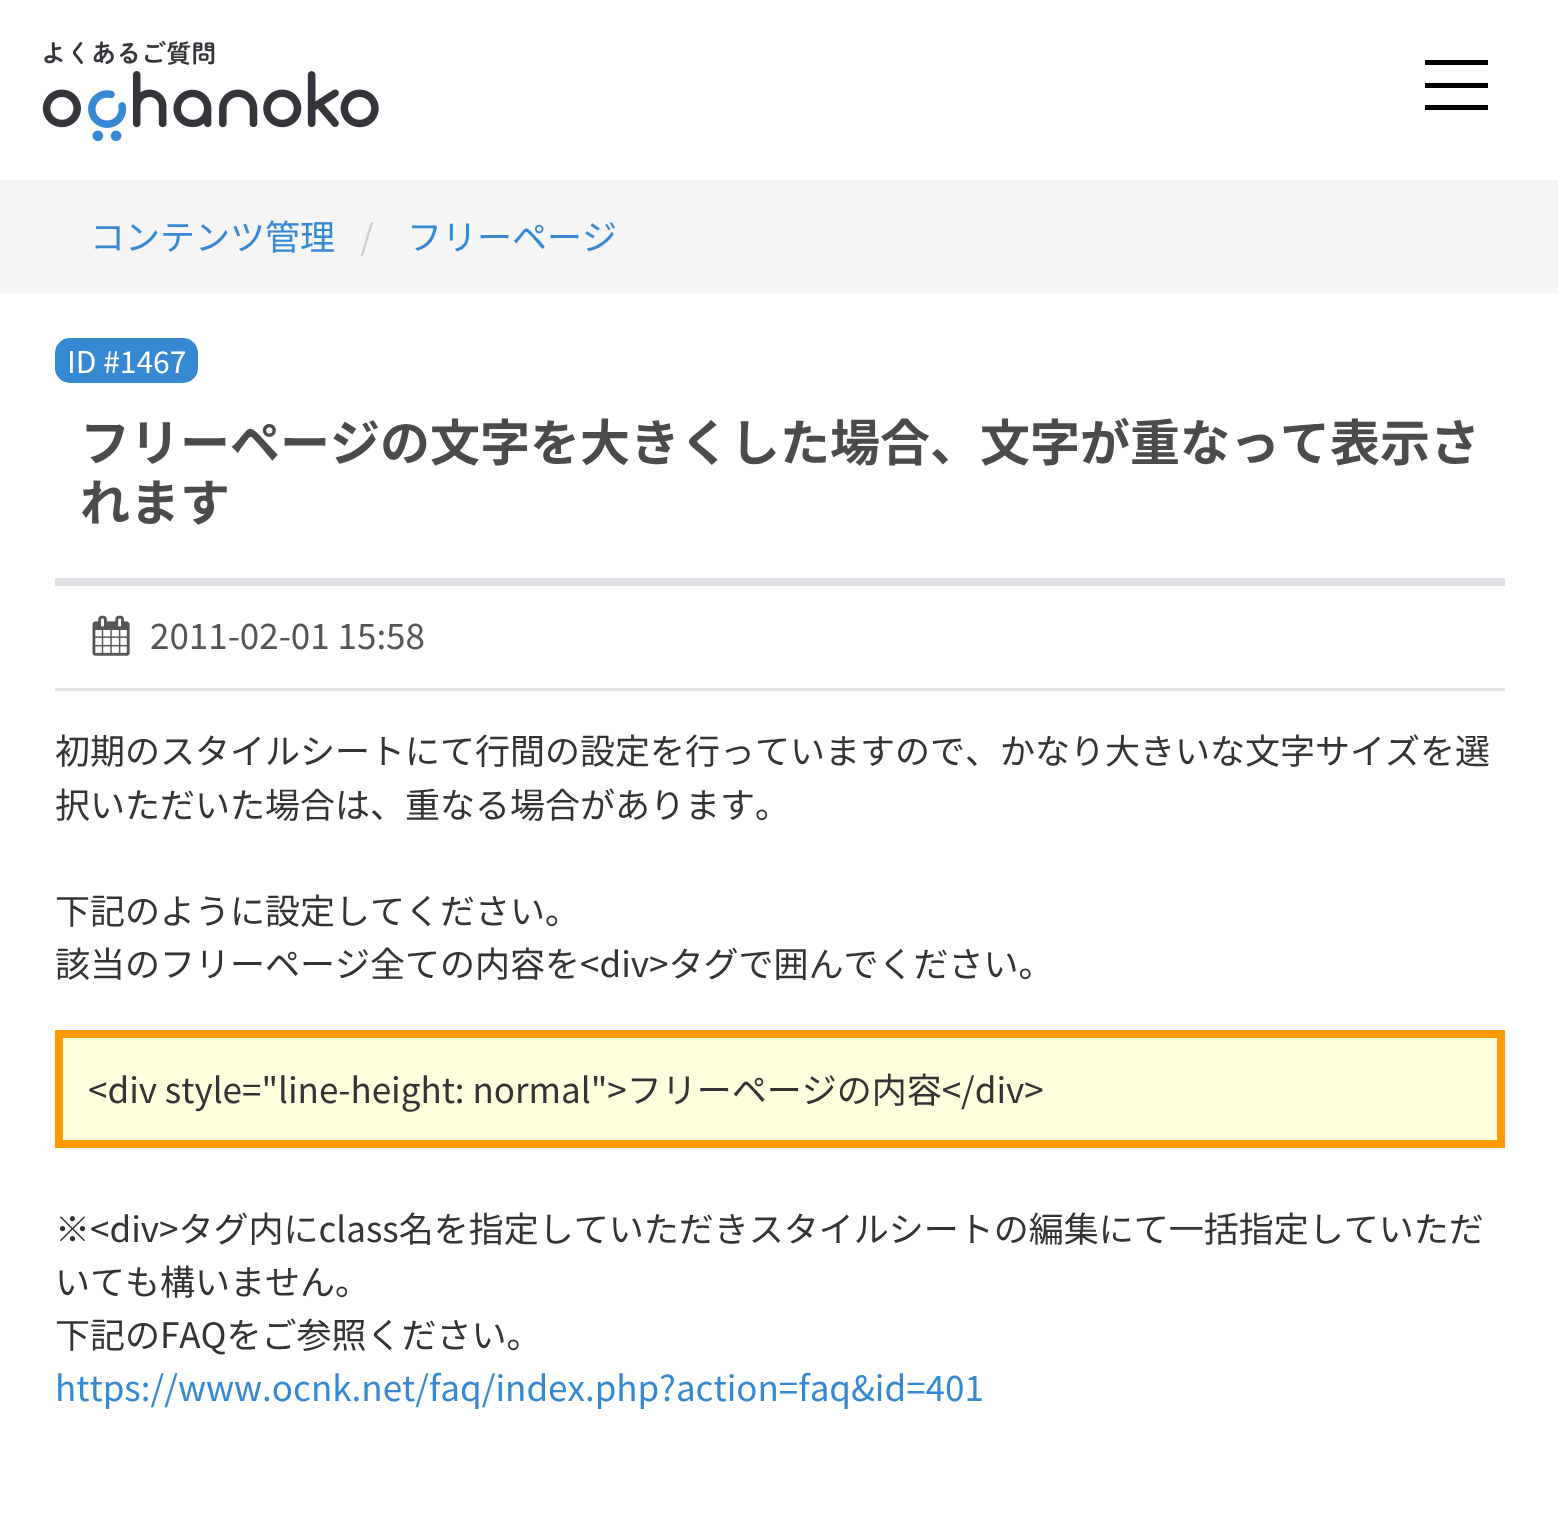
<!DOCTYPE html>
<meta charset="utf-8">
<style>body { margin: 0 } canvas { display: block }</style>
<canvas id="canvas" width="1558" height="1517"></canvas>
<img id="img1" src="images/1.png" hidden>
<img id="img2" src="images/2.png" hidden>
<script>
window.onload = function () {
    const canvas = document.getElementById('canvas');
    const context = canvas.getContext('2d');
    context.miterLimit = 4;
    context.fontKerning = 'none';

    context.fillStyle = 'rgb(255, 255, 255)';
    context.fillRect(0, 0, 1558, 1517);
    context.drawImage(document.getElementById('img1'), 42, 40, 337, 102);
    context.fillStyle = 'rgb(0, 0, 0)';
    context.fillRect(1425, 60, 63, 5);
    context.fillRect(1425, 83, 63, 5);
    context.fillRect(1425, 105, 63, 5);
    context.fillStyle = 'rgb(245, 245, 245)';
    context.fillRect(0, 180, 1558, 113);
    context.fillStyle = 'rgb(53, 136, 209)';
    context.beginPath();
    context.roundRect(55, 338, 143, 45, 15);
    context.fill();
    context.fillStyle = 'rgb(224, 223, 227)';
    context.fillRect(55, 578, 1450, 8);
    context.fillRect(55, 688, 1450, 3);
    context.drawImage(document.getElementById('img2'), 92, 615, 38, 41);
    context.fillStyle = 'rgb(255, 255, 221)';
    context.beginPath();
    context.rect(59, 1034, 1442, 110);
    context.fill();
    context.strokeStyle = 'rgb(255, 153, 0)';
    context.lineWidth = 8;
    context.stroke();
    context.font = '35px Noto Sans JP';
    context.fillStyle = 'rgb(53, 136, 209)';
    context.fillText('コンテンツ管理', 90, 250);
    context.fillStyle = 'rgb(204, 204, 204)';
    context.fillText('/', 360, 250);
    context.fillStyle = 'rgb(53, 136, 209)';
    context.fillText('フリーページ', 407, 250);
    context.font = '30px Noto Sans JP';
    context.fillStyle = 'rgb(255, 255, 255)';
    context.fillText('ID #1467', 67, 373);
    context.font = 'bold 50px Noto Sans JP';
    context.fillStyle = 'rgb(75, 75, 76)';
    context.fillText('フリーページの文字を大きくした場合、文字が重なって表示さ', 80, 461);
    context.fillText('れます', 80, 521);
    context.font = '35px Noto Sans JP';
    context.fillStyle = 'rgb(85, 85, 85)';
    context.fillText('2011-02-01 15:58', 150, 649);
    context.fillStyle = 'rgb(51, 51, 51)';
    context.fillText('初期のスタイルシートにて行間の設定を行っていますので、かなり大きいな文字サイズを選', 55, 764);
    context.fillText('択いただいた場合は、重なる場合があります。', 55, 818);
    context.fillText('下記のように設定してください。', 55, 924);
    context.fillText('該当のフリーページ全ての内容を<div>タグで囲んでください。', 55, 977);
    context.fillText('<div style="line-height: normal">フリーページの内容<\/div>', 88, 1103);
    context.fillText('※<div>タグ内にclass名を指定していただきスタイルシートの編集にて一括指定していただ', 55, 1242);
    context.fillText('いても構いません。', 55, 1295);
    context.fillText('下記のFAQをご参照ください。', 55, 1348);
    context.fillStyle = 'rgb(53, 136, 209)';
    context.fillText('https://www.ocnk.net/faq/index.php?action=faq&id=401', 55, 1401);
};
</script>
